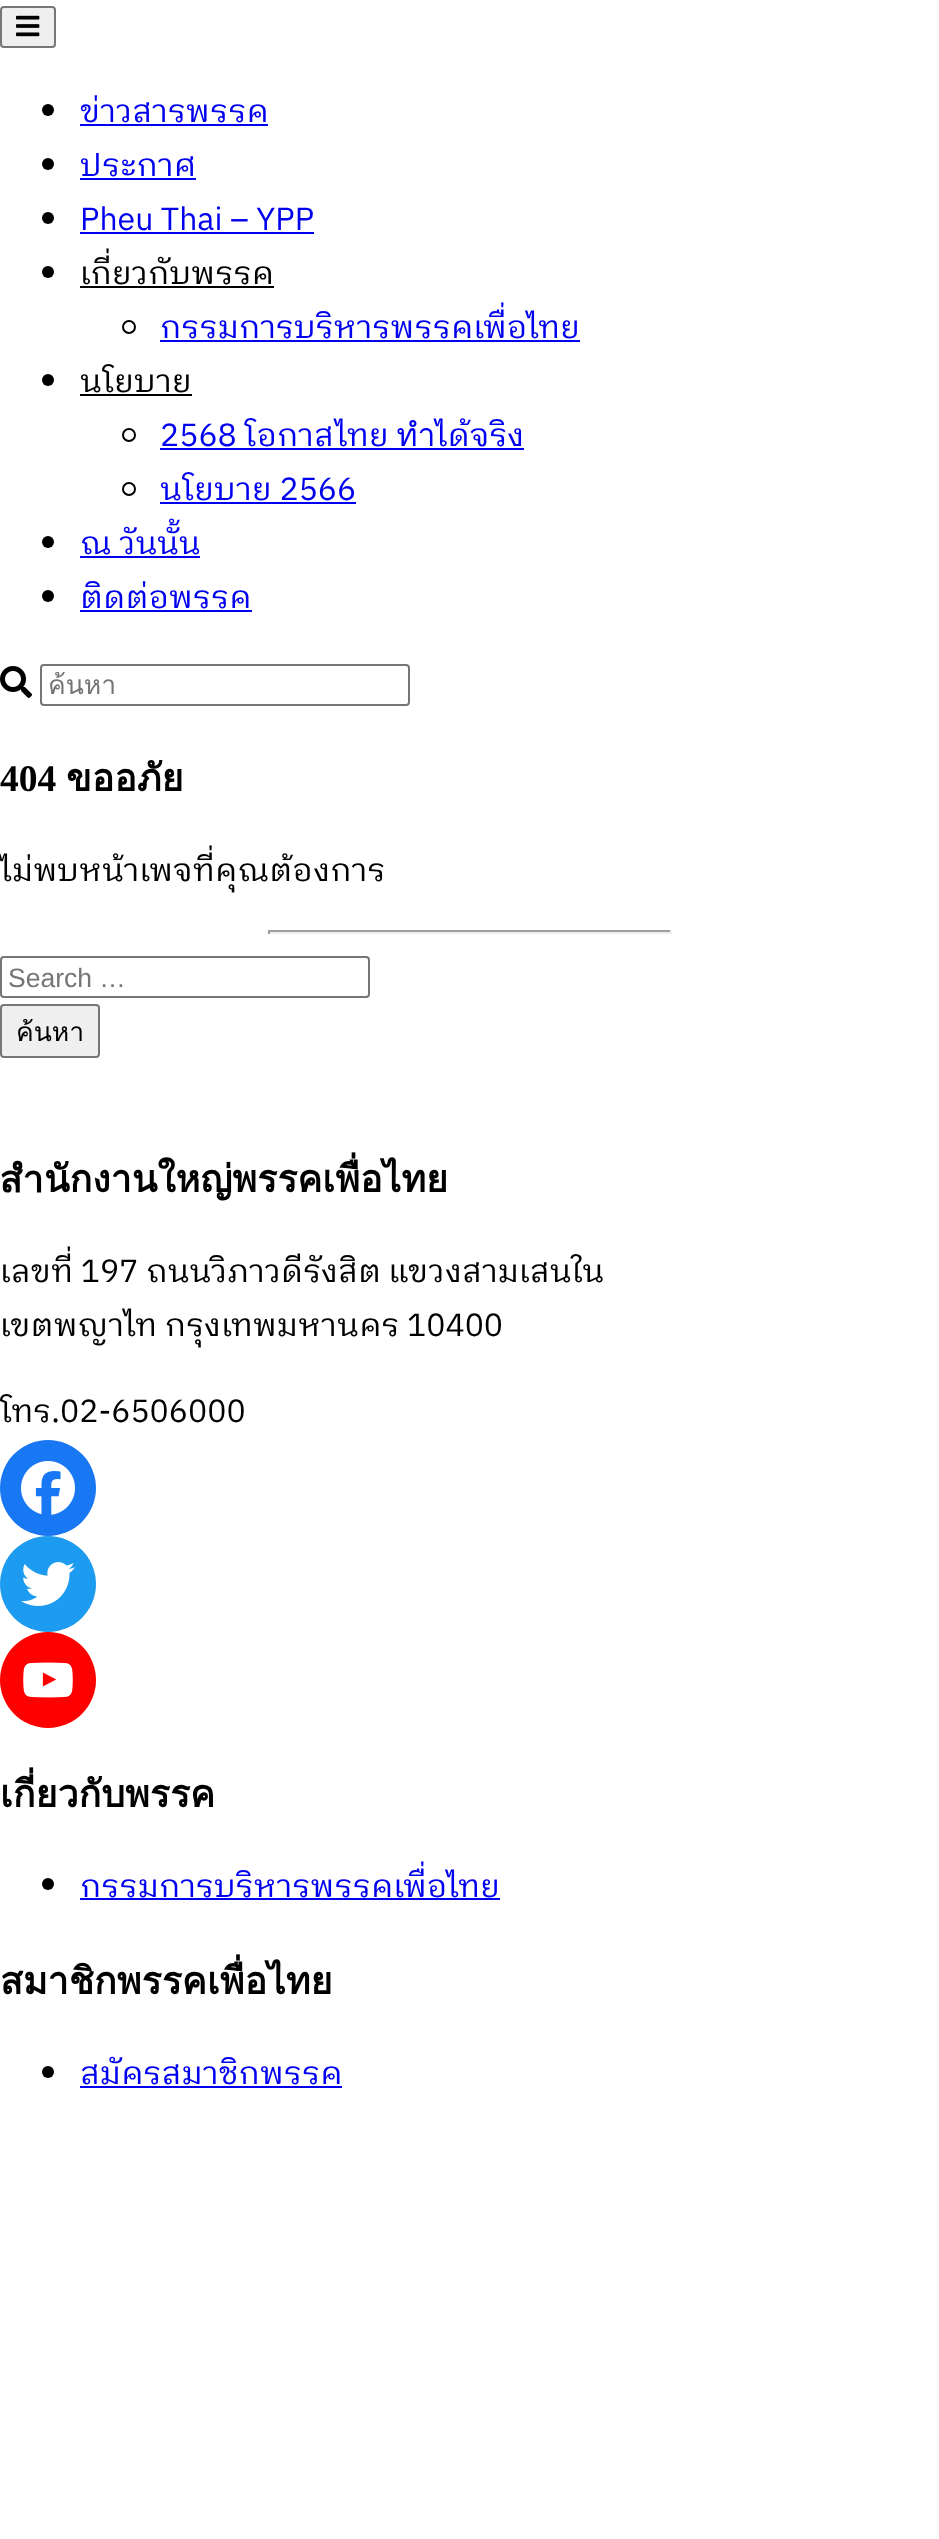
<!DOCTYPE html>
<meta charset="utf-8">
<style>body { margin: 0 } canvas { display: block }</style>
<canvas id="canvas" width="939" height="2539"></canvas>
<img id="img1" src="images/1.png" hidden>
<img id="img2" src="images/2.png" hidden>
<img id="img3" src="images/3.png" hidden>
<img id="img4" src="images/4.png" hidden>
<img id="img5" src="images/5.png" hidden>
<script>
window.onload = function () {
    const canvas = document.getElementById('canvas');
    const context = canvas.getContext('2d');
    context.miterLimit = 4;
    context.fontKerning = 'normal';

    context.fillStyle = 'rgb(255, 255, 255)';
    context.fillRect(0, 0, 939, 2539);
    context.fillStyle = 'rgb(239, 239, 239)';
    context.beginPath();
    context.roundRect(1, 7, 54, 40, 3);
    context.fill();
    context.strokeStyle = 'rgb(118, 118, 118)';
    context.lineWidth = 2;
    context.stroke();
    context.drawImage(document.getElementById('img1'), 16, 15, 24, 22);
    context.fillStyle = 'rgb(0, 0, 0)';
    context.beginPath();
    context.arc(48, 110, 6, 0, 2 * Math.PI);
    context.fill();
    context.fillStyle = 'rgb(0, 0, 238)';
    context.fillRect(80, 124, 188, 2);
    context.fillStyle = 'rgb(0, 0, 0)';
    context.beginPath();
    context.arc(48, 164, 6, 0, 2 * Math.PI);
    context.fill();
    context.fillStyle = 'rgb(0, 0, 238)';
    context.fillRect(80, 178, 116, 2);
    context.fillStyle = 'rgb(0, 0, 0)';
    context.beginPath();
    context.arc(48, 218, 6, 0, 2 * Math.PI);
    context.fill();
    context.fillStyle = 'rgb(0, 0, 238)';
    context.fillRect(80, 232, 234, 2);
    context.fillStyle = 'rgb(0, 0, 0)';
    context.beginPath();
    context.arc(48, 272, 6, 0, 2 * Math.PI);
    context.fill();
    context.fillRect(80, 286, 194, 2);
    context.beginPath();
    context.arc(129, 327, 6, 0, 2 * Math.PI);
    context.strokeStyle = 'rgb(0, 0, 0)';
    context.stroke();
    context.fillStyle = 'rgb(0, 0, 238)';
    context.fillRect(160, 340, 420, 2);
    context.fillStyle = 'rgb(0, 0, 0)';
    context.beginPath();
    context.arc(48, 380, 6, 0, 2 * Math.PI);
    context.fill();
    context.fillRect(80, 394, 112, 2);
    context.beginPath();
    context.arc(129, 435, 6, 0, 2 * Math.PI);
    context.stroke();
    context.fillStyle = 'rgb(0, 0, 238)';
    context.fillRect(160, 448, 364, 2);
    context.beginPath();
    context.arc(129, 489, 6, 0, 2 * Math.PI);
    context.stroke();
    context.fillRect(160, 502, 196, 2);
    context.fillStyle = 'rgb(0, 0, 0)';
    context.beginPath();
    context.arc(48, 542, 6, 0, 2 * Math.PI);
    context.fill();
    context.fillStyle = 'rgb(0, 0, 238)';
    context.fillRect(80, 556, 120, 2);
    context.fillStyle = 'rgb(0, 0, 0)';
    context.beginPath();
    context.arc(48, 596, 6, 0, 2 * Math.PI);
    context.fill();
    context.fillStyle = 'rgb(0, 0, 238)';
    context.fillRect(80, 610, 172, 2);
    context.drawImage(document.getElementById('img2'), 0, 666, 32, 32);
    context.beginPath();
    context.roundRect(41, 665, 368, 40, 3);
    context.strokeStyle = 'rgb(118, 118, 118)';
    context.stroke();
    context.fillStyle = 'rgb(159, 159, 159)';
    context.fillRect(268, 930, 404, 2);
    context.fillStyle = 'rgb(238, 238, 238)';
    context.fillRect(670, 930, 2, 4);
    context.fillRect(268, 932, 404, 2);
    context.fillStyle = 'rgb(159, 159, 159)';
    context.fillRect(268, 930, 2, 4);
    context.beginPath();
    context.roundRect(1, 957, 368, 40, 3);
    context.stroke();
    context.fillStyle = 'rgb(239, 239, 239)';
    context.beginPath();
    context.roundRect(1, 1005, 98, 52, 3);
    context.fill();
    context.stroke();
    context.fillStyle = 'rgb(24, 119, 242)';
    context.beginPath();
    context.arc(48, 1488, 48, 0, 2 * Math.PI);
    context.fill();
    context.drawImage(document.getElementById('img3'), 21, 1461, 54, 54);
    context.fillStyle = 'rgb(29, 155, 240)';
    context.beginPath();
    context.arc(48, 1584, 48, 0, 2 * Math.PI);
    context.fill();
    context.drawImage(document.getElementById('img4'), 21, 1562, 54, 44);
    context.fillStyle = 'rgb(255, 0, 0)';
    context.beginPath();
    context.arc(48, 1680, 48, 0, 2 * Math.PI);
    context.fill();
    context.drawImage(document.getElementById('img5'), 23, 1662, 50, 36);
    context.fillStyle = 'rgb(0, 0, 0)';
    context.beginPath();
    context.arc(48, 1884, 6, 0, 2 * Math.PI);
    context.fill();
    context.fillStyle = 'rgb(0, 0, 238)';
    context.fillRect(80, 1898, 420, 2);
    context.fillStyle = 'rgb(0, 0, 0)';
    context.beginPath();
    context.arc(48, 2072, 6, 0, 2 * Math.PI);
    context.fill();
    context.fillStyle = 'rgb(0, 0, 238)';
    context.fillRect(80, 2086, 262, 2);
    context.font = '32px IBM Plex Sans Thai Looped';
    context.fillText('ข่าวสารพรรค', 80, 122);
    context.fillText('ประกาศ', 80, 176);
    context.fillText('Pheu Thai – YPP', 80, 230);
    context.fillStyle = 'rgb(0, 0, 0)';
    context.fillText('เกี่ยวกับพรรค', 80, 284);
    context.fillStyle = 'rgb(0, 0, 238)';
    context.fillText('กรรมการบริหารพรรคเพื่อไทย', 160, 338);
    context.fillStyle = 'rgb(0, 0, 0)';
    context.fillText('นโยบาย', 80, 392);
    context.fillStyle = 'rgb(0, 0, 238)';
    context.fillText('2568 โอกาสไทย ทำได้จริง', 160, 446);
    context.fillText('นโยบาย 2566', 160, 500);
    context.fillText('ณ วันนั้น', 80, 554);
    context.fillText('ติดต่อพรรค', 80, 608);
    context.save();
    context.beginPath();
    context.rect(48, 668, 354, 34);
    context.clip();
    context.font = '26.5px Loma';
    context.fillStyle = 'rgb(117, 117, 117)';
    context.fillText('ค้นหา', 48, 694);
    context.restore();
    context.font = 'bold 37.5px Liberation Serif';
    context.fillStyle = 'rgb(0, 0, 0)';
    context.fillText('404', 0, 791);
    context.font = 'bold 37.5px Loma';
    context.fillText('ขออภัย', 66, 791);
    context.font = '32px IBM Plex Sans Thai Looped';
    context.fillText('ไม่พบหน้าเพจที่คุณต้องการ', 0, 881);
    context.font = '26.5px Liberation Sans';
    context.fillStyle = 'rgb(117, 117, 117)';
    context.fillText('Search …', 8, 987);
    context.font = '26.5px Loma';
    context.fillStyle = 'rgb(0, 0, 0)';
    context.fillText('ค้นหา', 16, 1041);
    context.font = 'bold 37.5px Loma';
    context.fillText('สำนักงานใหญ่พรรคเพื่อไทย', 0, 1192);
    context.font = '32px IBM Plex Sans Thai Looped';
    context.fillText('เลขที่ 197 ถนนวิภาวดีรังสิต แขวงสามเสนใน', 0, 1282);
    context.fillText('เขตพญาไท กรุงเทพมหานคร 10400', 0, 1336);
    context.fillText('โทร.02-6506000', 0, 1422);
    context.font = 'bold 37.5px Loma';
    context.fillText('เกี่ยวกับพรรค', 0, 1807);
    context.font = '32px IBM Plex Sans Thai Looped';
    context.fillStyle = 'rgb(0, 0, 238)';
    context.fillText('กรรมการบริหารพรรคเพื่อไทย', 80, 1897);
    context.font = 'bold 37.5px Loma';
    context.fillStyle = 'rgb(0, 0, 0)';
    context.fillText('สมาชิกพรรคเพื่อไทย', 0, 1994);
    context.font = '32px IBM Plex Sans Thai Looped';
    context.fillStyle = 'rgb(0, 0, 238)';
    context.fillText('สมัครสมาชิกพรรค', 80, 2084);
};
</script>
